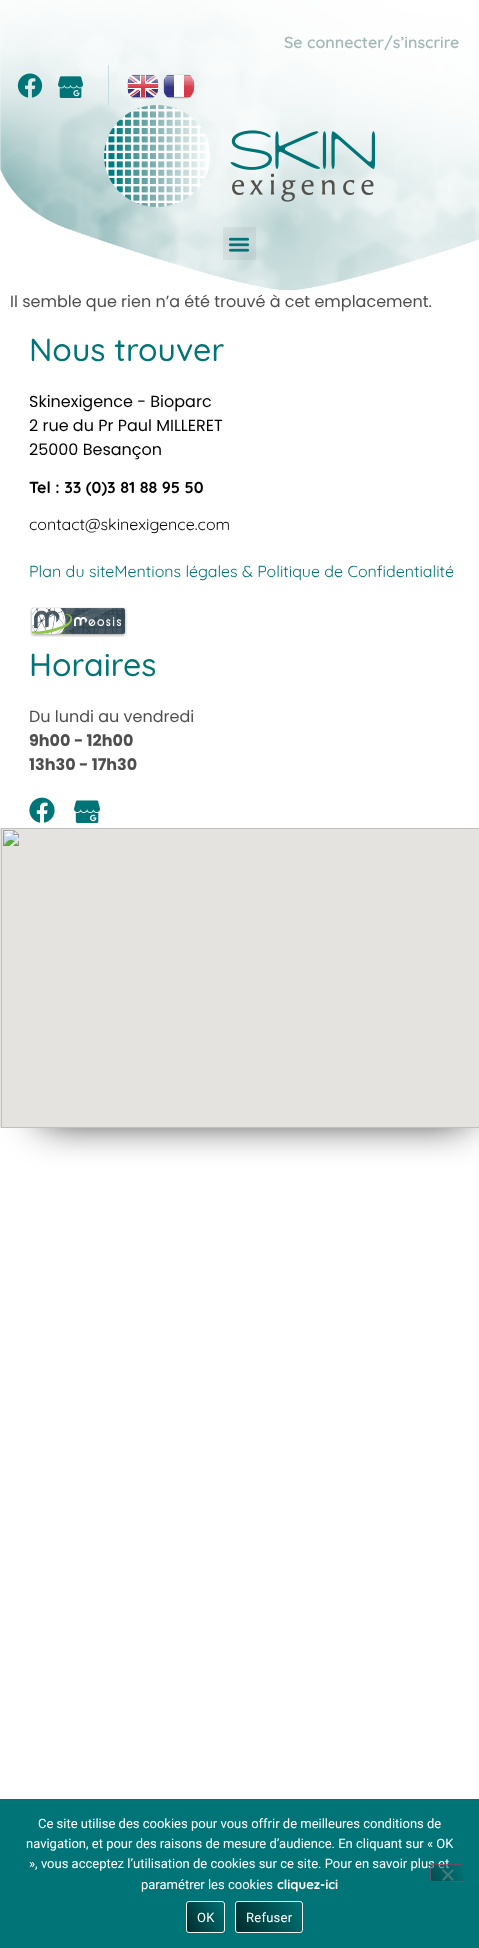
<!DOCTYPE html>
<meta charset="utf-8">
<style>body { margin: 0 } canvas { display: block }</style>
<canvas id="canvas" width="479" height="1948"></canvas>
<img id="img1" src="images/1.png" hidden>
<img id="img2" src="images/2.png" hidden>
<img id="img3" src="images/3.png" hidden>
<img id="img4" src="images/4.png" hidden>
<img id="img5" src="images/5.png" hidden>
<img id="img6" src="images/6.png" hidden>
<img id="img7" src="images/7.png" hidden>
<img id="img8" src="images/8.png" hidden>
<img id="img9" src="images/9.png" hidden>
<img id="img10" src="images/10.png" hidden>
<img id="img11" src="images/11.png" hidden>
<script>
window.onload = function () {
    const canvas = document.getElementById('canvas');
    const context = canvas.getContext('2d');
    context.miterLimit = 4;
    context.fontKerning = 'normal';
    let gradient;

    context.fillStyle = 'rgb(255, 255, 255)';
    context.fillRect(0, 0, 479, 1948);
    context.drawImage(document.getElementById('img1'), 0, 0, 479, 290);
    context.fillStyle = 'rgb(197, 222, 223)';
    context.fillRect(108, 65, 1, 40);
    context.drawImage(document.getElementById('img2'), 17, 73, 26, 25);
    context.drawImage(document.getElementById('img3'), 58, 76, 25, 22);
    context.drawImage(document.getElementById('img4'), 127, 74, 32, 25);
    context.drawImage(document.getElementById('img5'), 163, 74, 32, 25);
    context.drawImage(document.getElementById('img6'), 104, 105, 271, 102);
    context.fillStyle = 'rgba(0, 0, 0, 0.05)';
    context.fillRect(223, 227, 33, 33);
    context.drawImage(document.getElementById('img7'), 228, 237, 22, 15);
    context.drawImage(document.getElementById('img8'), 30, 607, 97, 30);
    context.drawImage(document.getElementById('img9'), 29, 797, 26, 26);
    context.drawImage(document.getElementById('img10'), 74, 800, 26, 23);
    context.fillStyle = 'rgba(0, 0, 0, 0.95)';
    context.filter = 'blur(20.5px)';
    context.beginPath();
    context.rect(42, 874, 425, 246);
    context.fill();
    context.filter = 'none';
    context.drawImage(document.getElementById('img11'), 0, 828, 479, 300);
    context.fillStyle = 'rgb(0, 116, 118)';
    context.fillRect(0, 1799, 479, 149);
    context.save();
    context.beginPath();
    context.roundRect(430, 1864, 34, 18, 3);
    context.clip();
    gradient = context.createLinearGradient(464, 1882, 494, 1864);
    gradient.addColorStop(0, 'rgb(0, 80, 82)');
    gradient.addColorStop(1, 'rgb(0, 116, 118)');
    context.fillStyle = gradient;
    context.fillRect(463, 1865, 1, 16);
    gradient = context.createLinearGradient(432, 1898, 462, 1880);
    gradient.addColorStop(0, 'rgb(0, 80, 82)');
    gradient.addColorStop(1, 'rgb(0, 116, 118)');
    context.fillStyle = gradient;
    context.fillRect(431, 1881, 32, 1);
    context.restore();
    gradient = context.createLinearGradient(222, 1899, 263, 1875);
    gradient.addColorStop(0, 'rgb(0, 44, 45)');
    gradient.addColorStop(1, 'rgb(0, 115, 117)');
    context.fillStyle = gradient;
    context.fillRect(224, 1901, 1, 1);
    gradient = context.createLinearGradient(185, 1929, 226, 1905);
    gradient.addColorStop(0, 'rgb(0, 44, 45)');
    gradient.addColorStop(1, 'rgb(0, 115, 117)');
    context.fillStyle = gradient;
    context.fillRect(187, 1902, 37, 30);
    context.beginPath();
    context.roundRect(186.5, 1901.5, 38, 31, 2.5);
    context.strokeStyle = 'rgb(245, 244, 239)';
    context.stroke();
    gradient = context.createLinearGradient(304, 1905, 366, 1869);
    gradient.addColorStop(0, 'rgb(0, 44, 45)');
    gradient.addColorStop(1, 'rgb(0, 115, 117)');
    context.fillStyle = gradient;
    context.fillRect(302, 1901, 1, 1);
    gradient = context.createLinearGradient(238, 1935, 300, 1899);
    gradient.addColorStop(0, 'rgb(0, 44, 45)');
    gradient.addColorStop(1, 'rgb(0, 115, 117)');
    context.fillStyle = gradient;
    context.fillRect(236, 1902, 66, 30);
    context.beginPath();
    context.roundRect(235.5, 1901.5, 67, 31, 2.5);
    context.stroke();
    context.font = '600 16px Quicksand';
    context.fillStyle = 'rgb(163, 183, 183)';
    context.fillText('Se connecter/s’inscrire', 284, 48);
    context.font = '16px Poppins';
    context.fillStyle = 'rgb(78, 78, 78)';
    context.fillText('Il semble que rien n’a été trouvé à cet emplacement.', 10, 307);
    context.font = '500 32px Quicksand';
    context.fillStyle = 'rgb(0, 116, 118)';
    context.fillText('Nous trouver', 29, 361);
    context.font = '16px Poppins';
    context.fillStyle = 'rgb(0, 0, 0)';
    context.fillText('Skinexigence - Bioparc', 29, 407);
    context.fillText('2 rue du Pr Paul MILLERET', 29, 431);
    context.fillText('25000 Besançon', 29, 455);
    context.font = 'bold 16px Quicksand';
    context.fillText('Tel : 33 (0)3 81 88 95 50', 29, 493);
    context.font = '16px Quicksand';
    context.fillText('contact@skinexigence.com', 29, 530);
    context.fillStyle = 'rgb(0, 116, 118)';
    context.fillText('Plan du siteMentions légales & Politique de Confidentialité', 29, 577);
    context.font = '500 32px Quicksand';
    context.fillText('Horaires', 29, 676);
    context.font = '16px Poppins';
    context.fillStyle = 'rgb(78, 78, 78)';
    context.fillText('Du lundi au vendredi', 29, 722);
    context.font = 'bold 16px Poppins';
    context.fillText('9h00 - 12h00', 29, 746);
    context.fillText('13h30 - 17h30', 29, 770);
    context.font = '13px Roboto';
    context.fillStyle = 'rgb(255, 255, 255)';
    context.fillText('Ce site utilise des cookies pour vous offrir de meilleures conditions de', 38, 1828);
    context.fillText('navigation, et pour des raisons de mesure d’audience. En cliquant sur « OK', 26, 1848);
    context.fillText('», vous acceptez l’utilisation de cookies sur ce site. Pour en savoir plus et', 29, 1868);
    context.fillText('paramétrer les cookies', 141, 1889);
    context.font = 'bold 13px Quicksand';
    context.fillText('cliquez-ici', 277, 1889);
    gradient = context.createLinearGradient(400, 1866, 430, 1848);
    gradient.addColorStop(0, 'rgb(72, 119, 120)');
    gradient.addColorStop(1, 'rgb(72, 154, 156)');
    context.fillStyle = gradient;
    context.fillRect(430, 1864, 1, 1);
    gradient = context.createLinearGradient(432, 1866, 462, 1848);
    gradient.addColorStop(0, 'rgba(0, 44, 45, 0.5)');
    gradient.addColorStop(1, 'rgba(0, 115, 117, 0.5)');
    context.fillStyle = gradient;
    context.fillRect(431, 1864, 32, 1);
    gradient = context.createLinearGradient(400, 1882, 430, 1864);
    gradient.addColorStop(0, 'rgba(0, 44, 45, 0.5)');
    gradient.addColorStop(1, 'rgba(0, 115, 117, 0.5)');
    context.fillStyle = gradient;
    context.fillRect(430, 1865, 1, 16);
    gradient = context.createLinearGradient(432, 1882, 462, 1864);
    gradient.addColorStop(0, 'rgba(0, 44, 45, 0.5)');
    gradient.addColorStop(1, 'rgba(0, 115, 117, 0.5)');
    context.fillStyle = gradient;
    context.fillRect(431, 1865, 32, 16);
    context.beginPath();
    context.roundRect(430.5, 1864.5, 33, 17, 2.5);
    context.strokeStyle = 'rgba(204, 51, 102, 0.5)';
    context.stroke();
    context.fillStyle = 'rgb(64, 122, 123)';
    context.beginPath();
    context.moveTo(452.5, 1869);
    context.lineTo(454, 1870.5);
    context.lineTo(443.5, 1881);
    context.lineTo(442, 1879.5);
    context.closePath();
    context.fill();
    context.beginPath();
    context.moveTo(442, 1870.5);
    context.lineTo(443.5, 1869);
    context.lineTo(454, 1879.5);
    context.lineTo(452.5, 1881);
    context.closePath();
    context.fill();
    context.letterSpacing = '0.25px';
    context.font = '13px Roboto';
    context.fillStyle = 'rgb(255, 255, 255)';
    context.fillText('OK', 197, 1922);
    context.fillText('Refuser', 246, 1922);
};
</script>
